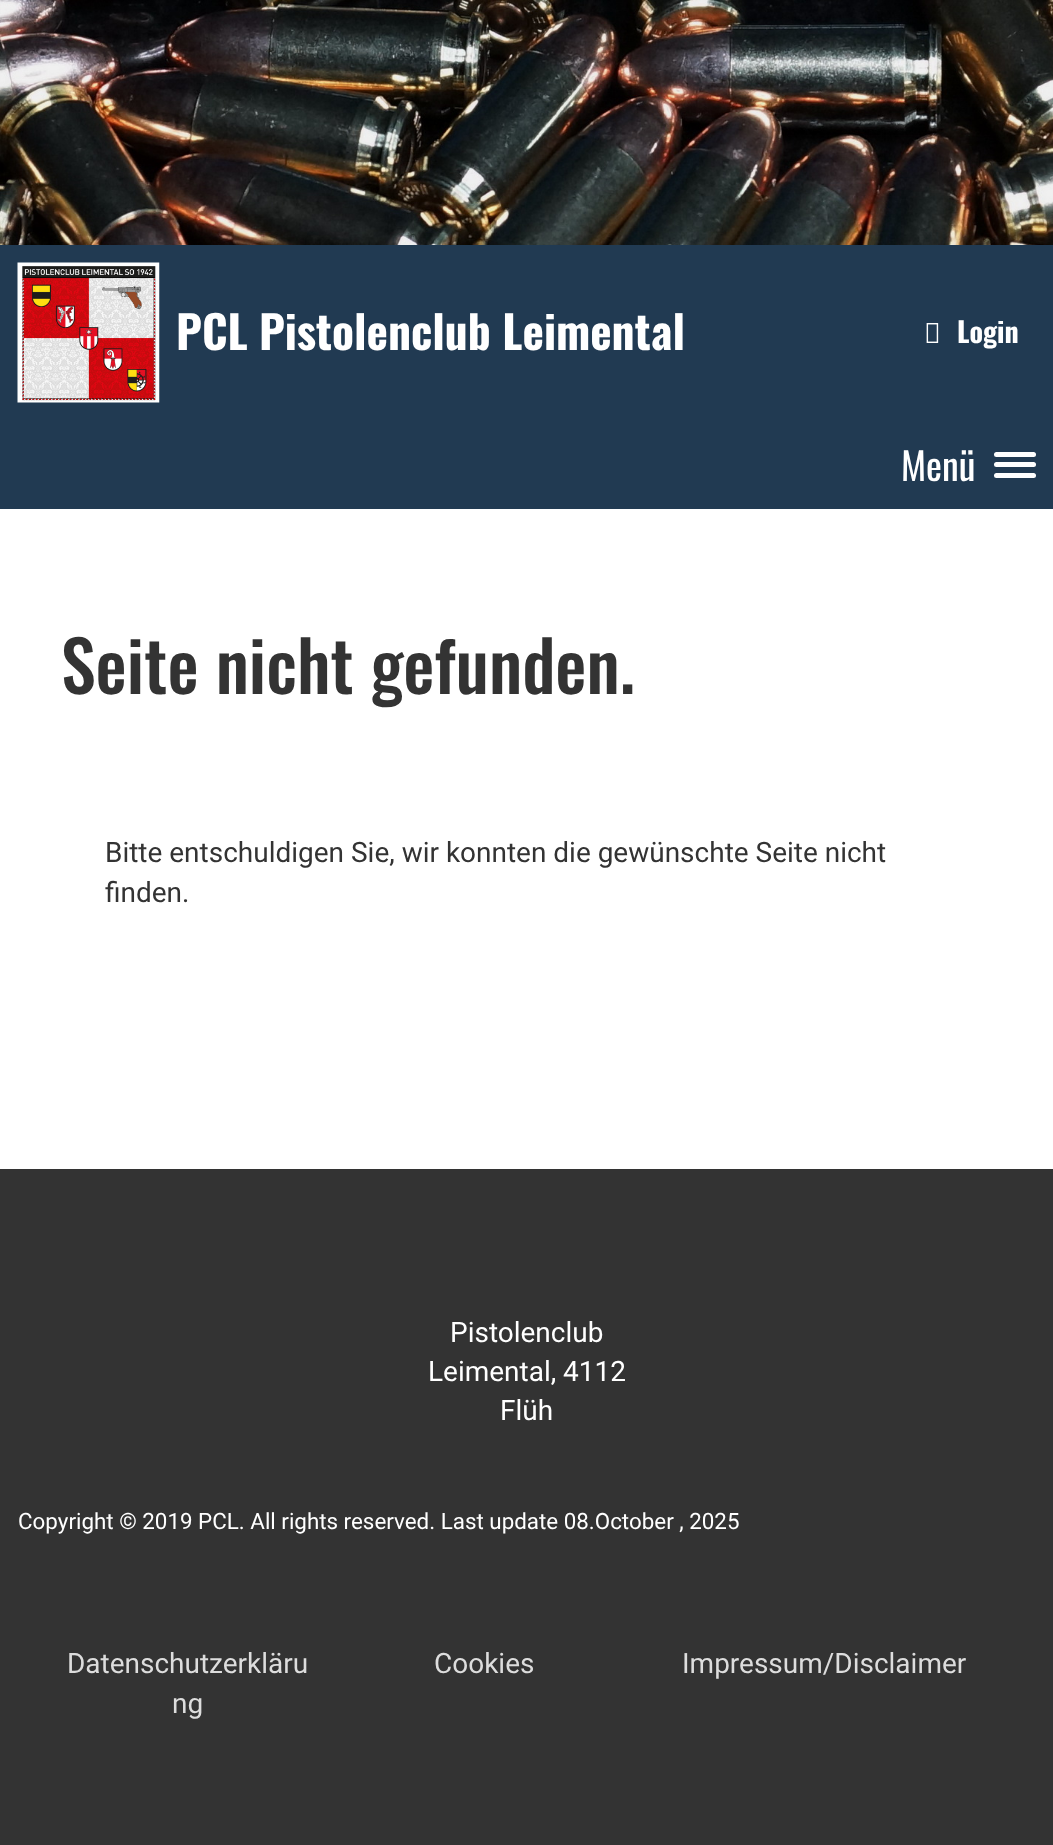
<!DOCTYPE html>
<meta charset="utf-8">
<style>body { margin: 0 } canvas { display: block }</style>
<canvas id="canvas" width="1053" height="1845"></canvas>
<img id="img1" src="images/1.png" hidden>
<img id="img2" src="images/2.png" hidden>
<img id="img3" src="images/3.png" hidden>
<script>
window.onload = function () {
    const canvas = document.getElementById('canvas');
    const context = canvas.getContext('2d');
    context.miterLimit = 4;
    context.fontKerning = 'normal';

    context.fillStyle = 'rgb(255, 255, 255)';
    context.fillRect(0, 0, 1053, 1845);
    context.drawImage(document.getElementById('img1'), 0, 0, 1053, 245);
    context.fillStyle = 'rgb(33, 58, 82)';
    context.fillRect(0, 245, 1053, 264);
    context.drawImage(document.getElementById('img2'), 17, 262, 143, 141);
    context.drawImage(document.getElementById('img3'), 926, 323, 13, 20);
    context.fillStyle = 'rgb(255, 255, 255)';
    context.beginPath();
    context.roundRect(994, 452, 42, 5, 2.5);
    context.fill();
    context.beginPath();
    context.roundRect(994, 462, 42, 5, 2.5);
    context.fill();
    context.beginPath();
    context.roundRect(994, 473, 42, 5, 2.5);
    context.fill();
    context.fillStyle = 'rgb(51, 51, 51)';
    context.fillRect(0, 1169, 1053, 676);
    context.font = 'bold 45.5px Oswald';
    context.fillStyle = 'rgb(255, 255, 255)';
    context.fillText('PCL Pistolenclub Leimental', 176, 350);
    context.font = 'bold 28px Oswald';
    context.fillText('Login', 957, 343);
    context.font = '38px Oswald';
    context.fillText('Menü', 901, 481);
    context.font = '500 70px Oswald';
    context.fillStyle = 'rgb(51, 51, 51)';
    context.fillText('Seite nicht gefunden.', 61, 694);
    context.font = '28px Roboto';
    context.fillText('Bitte entschuldigen Sie, wir konnten die gewünschte Seite nicht', 105, 862);
    context.fillText('finden.', 105, 902);
    context.fillStyle = 'rgb(255, 255, 255)';
    context.fillText('Pistolenclub', 450, 1342);
    context.fillText('Leimental, 4112', 428, 1381);
    context.fillText('Flüh', 500, 1420);
    context.font = '22.4px Roboto';
    context.fillText('Copyright © 2019 PCL. All rights reserved. Last update 08.October , 2025', 18, 1529);
    context.font = '28px Roboto';
    context.fillStyle = 'rgb(221, 221, 221)';
    context.fillText('Datenschutzerkläru', 67, 1673);
    context.fillText('ng', 172, 1713);
    context.fillText('Cookies', 434, 1673);
    context.fillText('Impressum/Disclaimer', 682, 1673);
};
</script>
